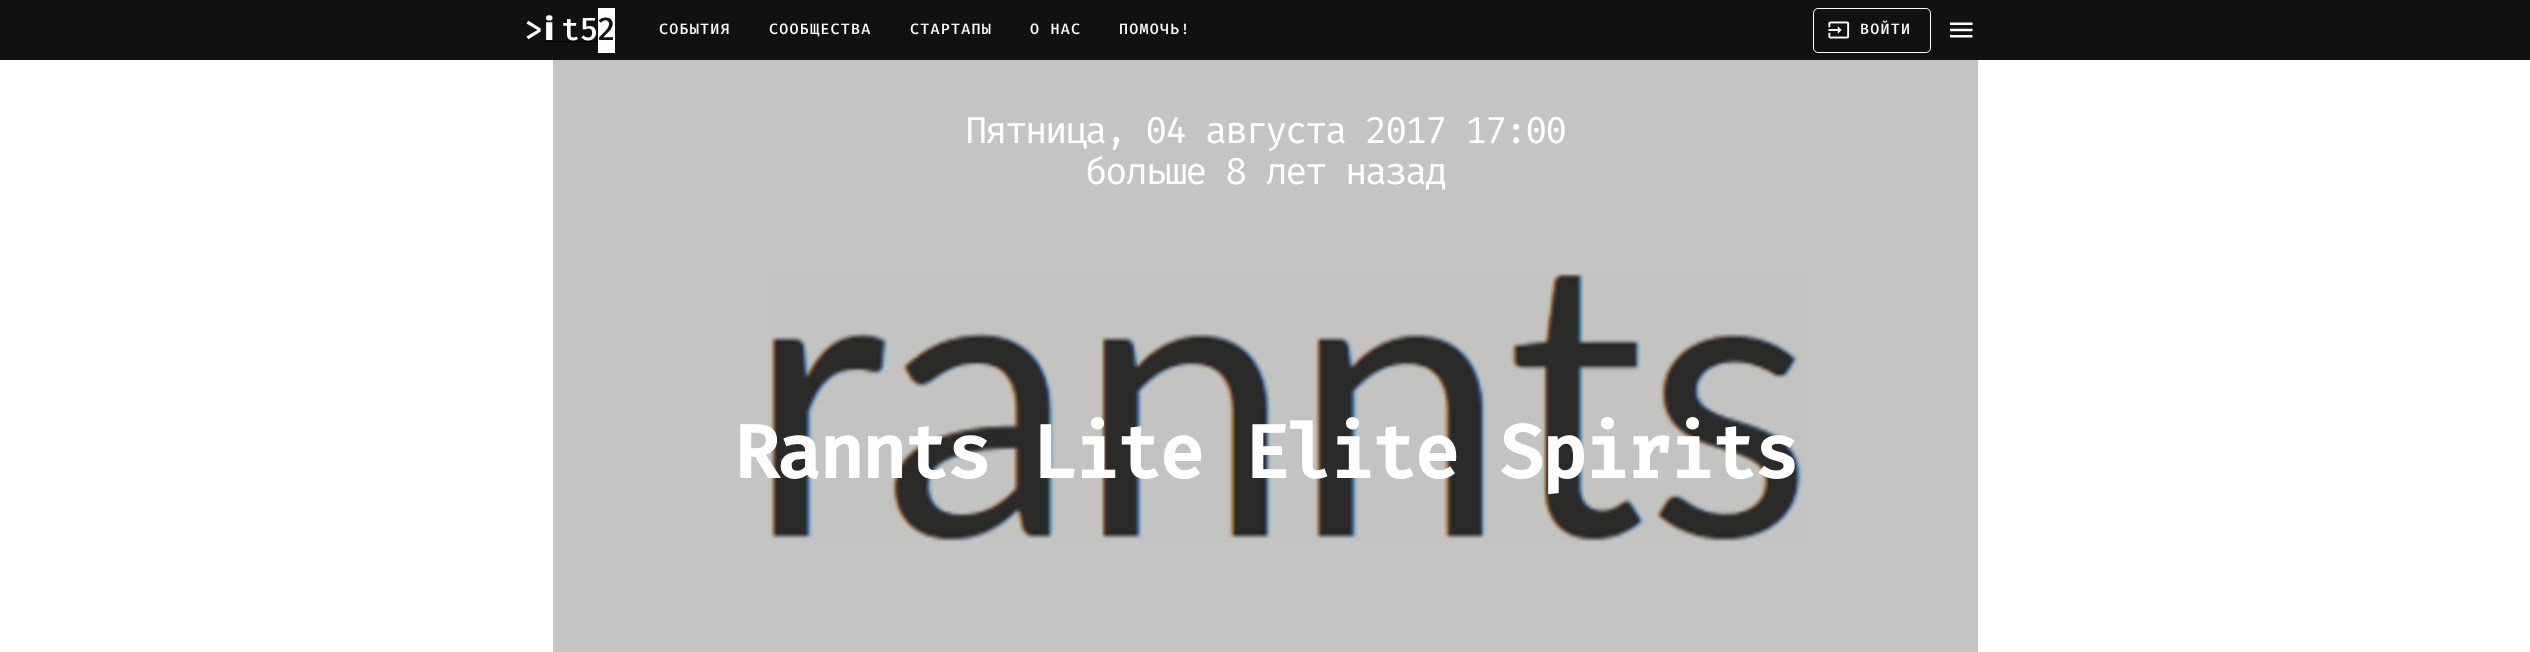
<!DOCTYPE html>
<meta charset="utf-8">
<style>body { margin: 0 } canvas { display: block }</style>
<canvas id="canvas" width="2530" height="652"></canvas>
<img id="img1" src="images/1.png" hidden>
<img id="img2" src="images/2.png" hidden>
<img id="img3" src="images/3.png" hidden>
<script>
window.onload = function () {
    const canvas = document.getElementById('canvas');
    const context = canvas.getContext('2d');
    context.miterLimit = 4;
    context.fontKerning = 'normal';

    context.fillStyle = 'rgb(255, 255, 255)';
    context.fillRect(0, 0, 2530, 652);
    context.fillStyle = 'rgb(17, 17, 17)';
    context.fillRect(0, 0, 2530, 60);
    context.fillStyle = 'rgb(0, 0, 0)';
    context.fillRect(544, 41, 54, 1);
    context.fillStyle = 'rgb(254, 254, 254)';
    context.fillRect(598, 8, 17, 45);
    context.beginPath();
    context.roundRect(1813.5, 8.5, 117, 44, 4.5);
    context.strokeStyle = 'rgb(254, 254, 254)';
    context.stroke();
    context.drawImage(document.getElementById('img1'), 1828, 21, 22, 18);
    context.drawImage(document.getElementById('img2'), 1950, 22, 23, 16);
    context.fillStyle = 'rgb(196, 196, 196)';
    context.fillRect(553, 60, 1425, 592);
    context.drawImage(document.getElementById('img3'), 768, 273, 1035, 269);
    context.letterSpacing = '-1px';
    context.font = '500 32px Fira Mono';
    context.fillStyle = 'rgb(255, 255, 255)';
    context.fillText('>', 524, 40);
    context.font = '900 32px Noto Sans';
    context.fillText('i', 544, 40);
    context.font = '500 32px Fira Mono';
    context.fillText('t5', 561, 40);
    context.fillStyle = 'rgb(17, 17, 17)';
    context.fillText('2', 597, 40);
    context.letterSpacing = '1.25px';
    context.font = '500 15px Fira Mono';
    context.fillStyle = 'rgb(255, 255, 255)';
    context.fillText('СОБЫТИЯ', 659, 34);
    context.fillText('СООБЩЕСТВА', 769, 34);
    context.fillText('СТАРТАПЫ', 910, 34);
    context.fillText('О НАС', 1030, 34);
    context.fillText('ПОМОЧЬ!', 1119, 34);
    context.fillText('ВОЙТИ', 1860, 34);
    context.letterSpacing = '-2.5px';
    context.font = '37.5px Fira Mono';
    context.fillText('Пятница, 04 августа 2017 17:00', 965, 143);
    context.fillText('больше 8 лет назад', 1085, 184);
    context.font = 'bold 75px Fira Mono';
    context.fillText('Rannts Lite Elite Spirits', 734, 478);
};
</script>
